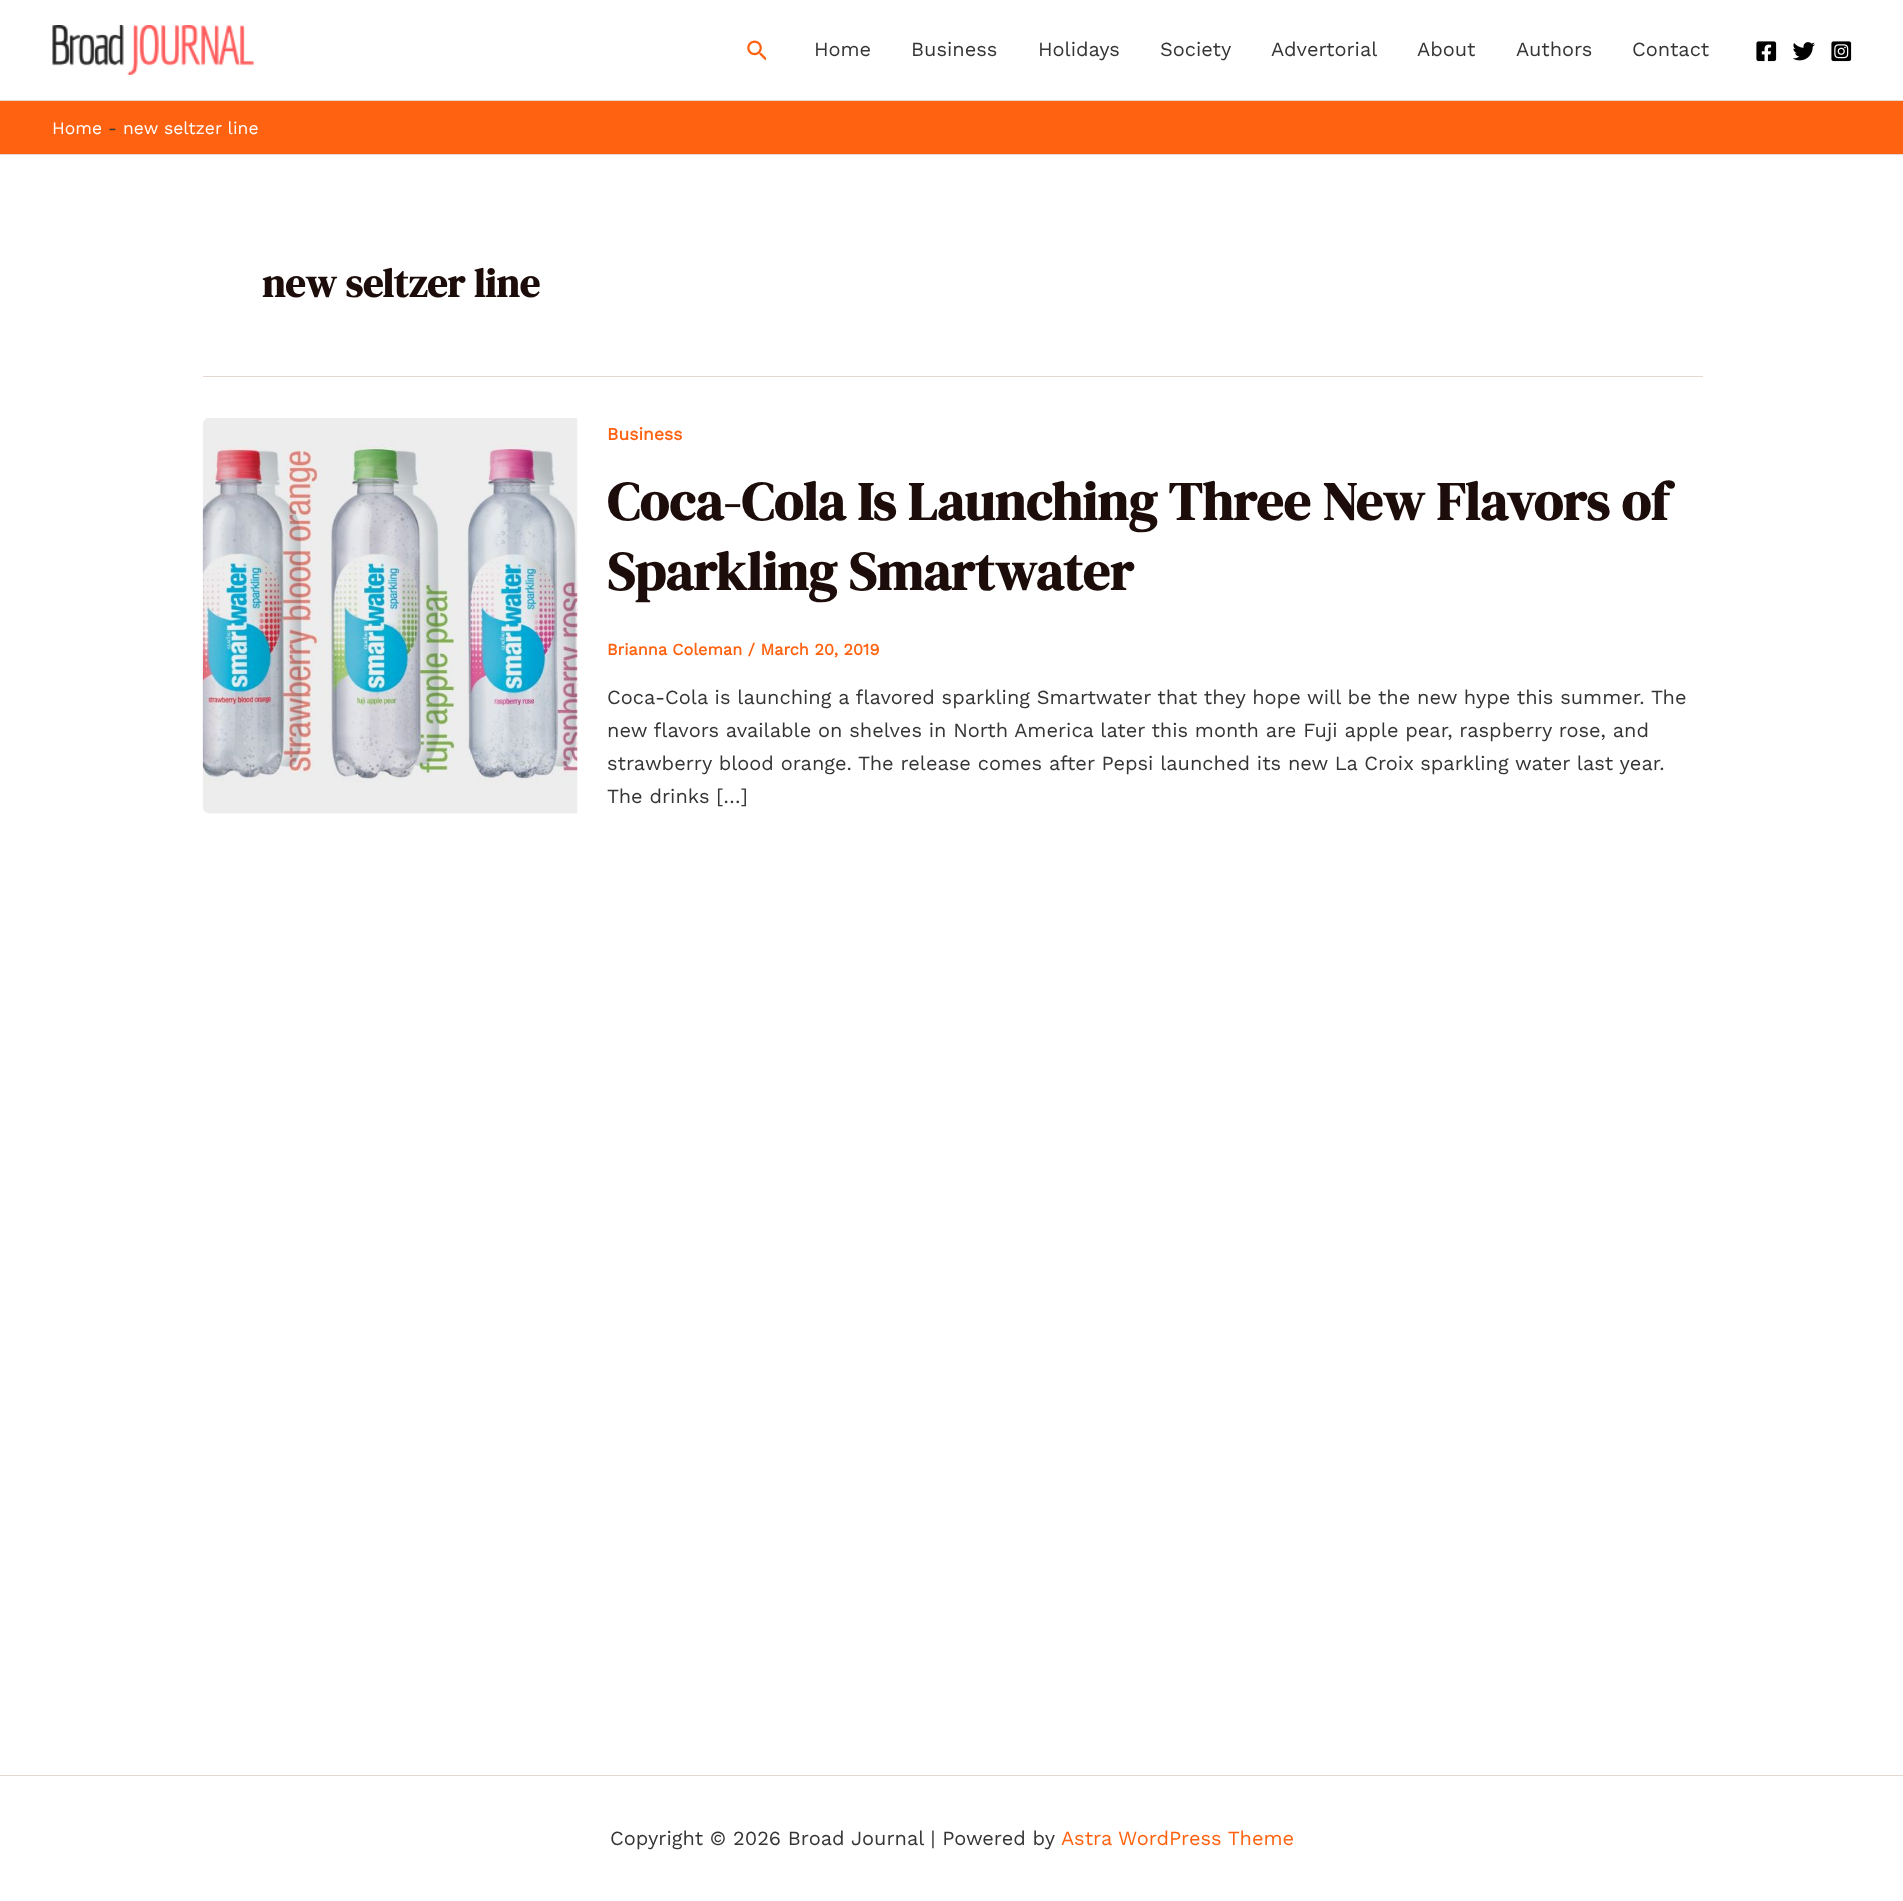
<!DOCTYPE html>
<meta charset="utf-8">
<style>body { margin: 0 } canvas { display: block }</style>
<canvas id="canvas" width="1903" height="1901"></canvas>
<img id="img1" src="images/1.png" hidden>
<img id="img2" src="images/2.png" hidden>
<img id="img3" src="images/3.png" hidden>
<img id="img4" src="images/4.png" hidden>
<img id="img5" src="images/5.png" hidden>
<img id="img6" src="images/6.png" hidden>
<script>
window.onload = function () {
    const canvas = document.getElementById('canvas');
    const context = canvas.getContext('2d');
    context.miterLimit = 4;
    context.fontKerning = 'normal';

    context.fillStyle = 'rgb(255, 255, 255)';
    context.fillRect(0, 0, 1903, 1901);
    context.fillStyle = 'rgb(229, 215, 209)';
    context.fillRect(0, 100, 1903, 1);
    context.drawImage(document.getElementById('img1'), 52, 25, 202, 50);
    context.drawImage(document.getElementById('img2'), 747, 40, 19, 21);
    context.drawImage(document.getElementById('img3'), 1756, 41, 21, 21);
    context.drawImage(document.getElementById('img4'), 1793, 42, 22, 19);
    context.drawImage(document.getElementById('img5'), 1831, 41, 21, 21);
    context.fillStyle = 'rgb(255, 98, 16)';
    context.fillRect(0, 101, 1903, 53);
    context.fillStyle = 'rgb(229, 215, 209)';
    context.fillRect(0, 154, 1903, 1);
    context.fillRect(203, 376, 1500, 1);
    context.drawImage(document.getElementById('img6'), 202, 418, 376, 396);
    context.fillRect(0, 1775, 1903, 1);
    context.font = '20px Work Sans';
    context.fillStyle = 'rgb(53, 53, 53)';
    context.fillText('Home', 814, 56);
    context.fillText('Business', 911, 56);
    context.fillText('Holidays', 1038, 56);
    context.fillText('Society', 1160, 56);
    context.fillText('Advertorial', 1271, 56);
    context.fillText('About', 1417, 56);
    context.fillText('Authors', 1516, 56);
    context.fillText('Contact', 1632, 56);
    context.font = '17.5px Work Sans';
    context.fillStyle = 'rgb(255, 255, 255)';
    context.fillText('Home', 52, 134);
    context.fillStyle = 'rgb(53, 53, 53)';
    context.fillText('-', 108, 134);
    context.fillStyle = 'rgb(255, 255, 255)';
    context.fillText('new seltzer line', 123, 134);
    context.font = 'bold 40px DM Serif Display';
    context.fillStyle = 'rgb(28, 13, 10)';
    context.fillText('new seltzer line', 262, 297);
    context.font = 'bold 17.5px Work Sans';
    context.fillStyle = 'rgb(255, 98, 16)';
    context.fillText('Business', 607, 440);
    context.font = 'bold 53.75px DM Serif Display';
    context.fillStyle = 'rgb(28, 13, 10)';
    context.fillText('Coca-Cola Is Launching Three New Flavors of', 607, 520);
    context.fillText('Sparkling Smartwater', 607, 590);
    context.font = 'bold 16.25px Work Sans';
    context.fillStyle = 'rgb(255, 98, 16)';
    context.fillText('Brianna Coleman / March 20, 2019', 607, 655);
    context.font = '20px Work Sans';
    context.fillStyle = 'rgb(53, 53, 53)';
    context.fillText('Coca-Cola is launching a flavored sparkling Smartwater that they hope will be the new hype this summer. The', 607, 704);
    context.fillText('new flavors available on shelves in North America later this month are Fuji apple pear, raspberry rose, and', 607, 737);
    context.fillText('strawberry blood orange. The release comes after Pepsi launched its new La Croix sparkling water last year.', 607, 770);
    context.fillText('The drinks […]', 607, 803);
    context.fillText('Copyright © 2026 Broad Journal | Powered by', 610, 1845);
    context.fillStyle = 'rgb(255, 98, 16)';
    context.fillText('Astra WordPress Theme', 1061, 1845);
};
</script>
